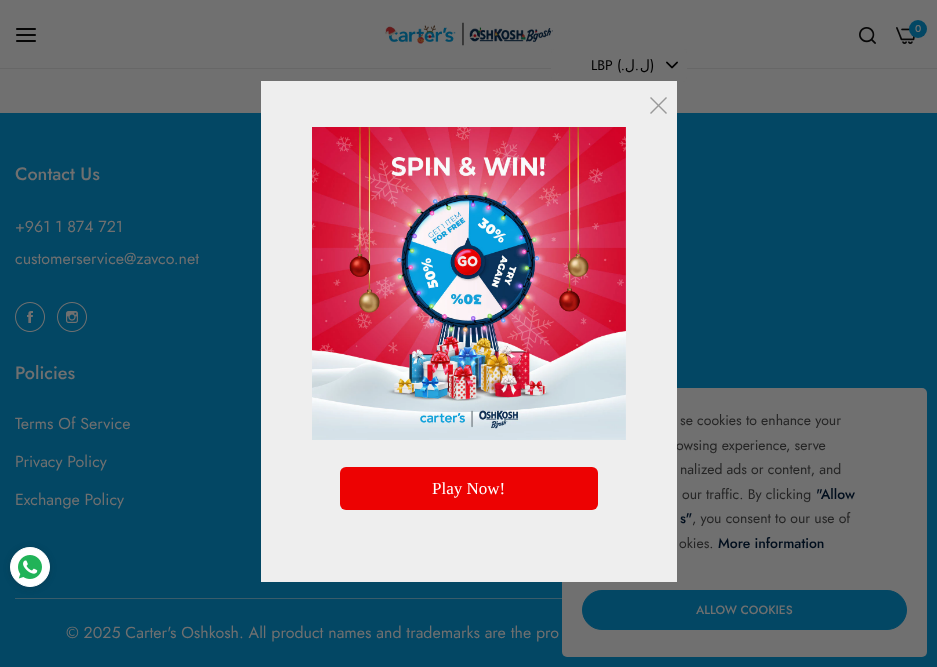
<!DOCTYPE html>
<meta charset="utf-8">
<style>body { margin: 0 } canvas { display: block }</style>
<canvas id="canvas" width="937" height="667"></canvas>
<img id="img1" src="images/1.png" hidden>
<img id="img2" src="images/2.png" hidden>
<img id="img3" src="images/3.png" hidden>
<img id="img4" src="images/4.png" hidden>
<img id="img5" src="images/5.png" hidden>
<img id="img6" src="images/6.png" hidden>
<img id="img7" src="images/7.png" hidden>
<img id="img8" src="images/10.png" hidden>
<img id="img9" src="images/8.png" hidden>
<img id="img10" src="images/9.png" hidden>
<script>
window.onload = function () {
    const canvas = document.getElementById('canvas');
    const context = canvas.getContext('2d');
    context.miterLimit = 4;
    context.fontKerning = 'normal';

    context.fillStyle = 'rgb(112, 112, 112)';
    context.fillRect(0, 0, 937, 667);
    context.fillStyle = 'rgb(103, 103, 103)';
    context.fillRect(0, 68, 937, 1);
    context.drawImage(document.getElementById('img1'), 16, 28, 20, 14);
    context.drawImage(document.getElementById('img2'), 385, 22, 168, 24);
    context.drawImage(document.getElementById('img3'), 859, 27, 17, 17);
    context.drawImage(document.getElementById('img4'), 896, 27, 19, 17);
    context.fillStyle = 'rgb(3, 71, 100)';
    context.beginPath();
    context.arc(918, 29, 9, 0, 2 * Math.PI);
    context.fill();
    context.fillRect(0, 113, 937, 554);
    context.drawImage(document.getElementById('img5'), 15, 302, 30, 30);
    context.drawImage(document.getElementById('img6'), 57, 302, 30, 30);
    context.fillStyle = 'rgb(58, 92, 106)';
    context.fillRect(15, 598, 547, 1);
    context.fillStyle = 'rgb(112, 112, 112)';
    context.beginPath();
    context.roundRect(551, 48, 136, 34, 5);
    context.fill();
    context.drawImage(document.getElementById('img7'), 666, 61, 12, 8);
    context.beginPath();
    context.roundRect(562, 388, 365, 269, 5);
    context.fill();
    context.fillStyle = 'rgb(3, 71, 100)';
    context.beginPath();
    context.roundRect(582.5, 590.5, 324, 39, 19.5);
    context.fill();
    context.strokeStyle = 'rgb(3, 71, 100)';
    context.stroke();
    context.fillStyle = 'rgba(27, 27, 27, 0.2)';
    context.filter = 'blur(3px)';
    context.beginPath();
    context.roundRect(10, 548, 40, 40, 20);
    context.fill();
    context.filter = 'none';
    context.fillStyle = 'rgb(255, 255, 255)';
    context.beginPath();
    context.arc(30, 567, 19.5, 0, 2 * Math.PI);
    context.fill();
    context.strokeStyle = 'rgb(255, 255, 255)';
    context.stroke();
    context.drawImage(document.getElementById('img8'), 18, 555, 24, 24);
    context.font = '500 10px Jost';
    context.fillStyle = 'rgb(112, 112, 112)';
    context.fillText('0', 915, 32);
    context.font = '500 18px Jost';
    context.fillText('Contact Us', 15, 180);
    context.font = '16px Jost';
    context.fillText('+961 1 874 721', 15, 232);
    context.fillText('customerservice@zavco.net', 15, 264);
    context.font = '500 18px Jost';
    context.fillText('Policies', 15, 379);
    context.font = '16px Jost';
    context.fillText('Terms Of Service', 15, 429);
    context.fillText('Privacy Policy', 15, 467);
    context.fillText('Exchange Policy', 15, 505);
    context.fillText('© 2025 Carter\'s Oshkosh. All product names and trademarks are the pro', 66, 638);
    context.font = '14px Jost';
    context.fillStyle = 'rgb(0, 0, 0)';
    context.fillText('LBP (', 591, 70);
    context.direction = 'rtl';
    context.fillText('.', 625, 70);
    context.font = '14px DejaVu Sans';
    context.fillText('ل', 635, 70);
    context.font = '14px Jost';
    context.fillText('.', 639, 70);
    context.font = '14px DejaVu Sans';
    context.fillText('ل', 650, 70);
    context.direction = 'ltr';
    context.font = '14px Jost';
    context.fillText(')', 650, 70);
    context.fillStyle = 'rgb(37, 37, 37)';
    context.fillText('se cookies to enhance your', 680, 425);
    context.fillText('owsing experience, serve', 676, 450);
    context.fillStyle = 'rgb(238, 238, 238)';
    context.fillRect(261, 81, 416, 501);
    context.drawImage(document.getElementById('img9'), 650, 97, 17, 17);
    context.fillStyle = 'rgb(237, 2, 2)';
    context.beginPath();
    context.roundRect(340, 467, 258, 43, 6);
    context.fill();
    context.font = '17px Liberation Serif';
    context.fillStyle = 'rgb(255, 255, 255)';
    context.fillText('Play Now!', 432, 494);
    context.drawImage(document.getElementById('img10'), 312, 127, 314, 313);
    context.font = '14px Jost';
    context.fillStyle = 'rgb(37, 37, 37)';
    context.fillText('nalized ads or content, and', 680, 474);
    context.fillText('our traffic. By clicking', 682, 499);
    context.font = '500 14px Jost';
    context.fillStyle = 'rgb(0, 14, 29)';
    context.fillText('"Allow', 816, 499);
    context.fillText('s"', 680, 523);
    context.font = '14px Jost';
    context.fillStyle = 'rgb(37, 37, 37)';
    context.fillText(', you consent to our use of', 692, 523);
    context.fillText('okies.', 679, 548);
    context.font = '500 14px Jost';
    context.fillStyle = 'rgb(0, 14, 29)';
    context.fillText('More information', 718, 548);
    context.font = '500 12px Jost';
    context.fillStyle = 'rgb(112, 112, 112)';
    context.fillText('ALLOW COOKIES', 696, 614);
};
</script>
